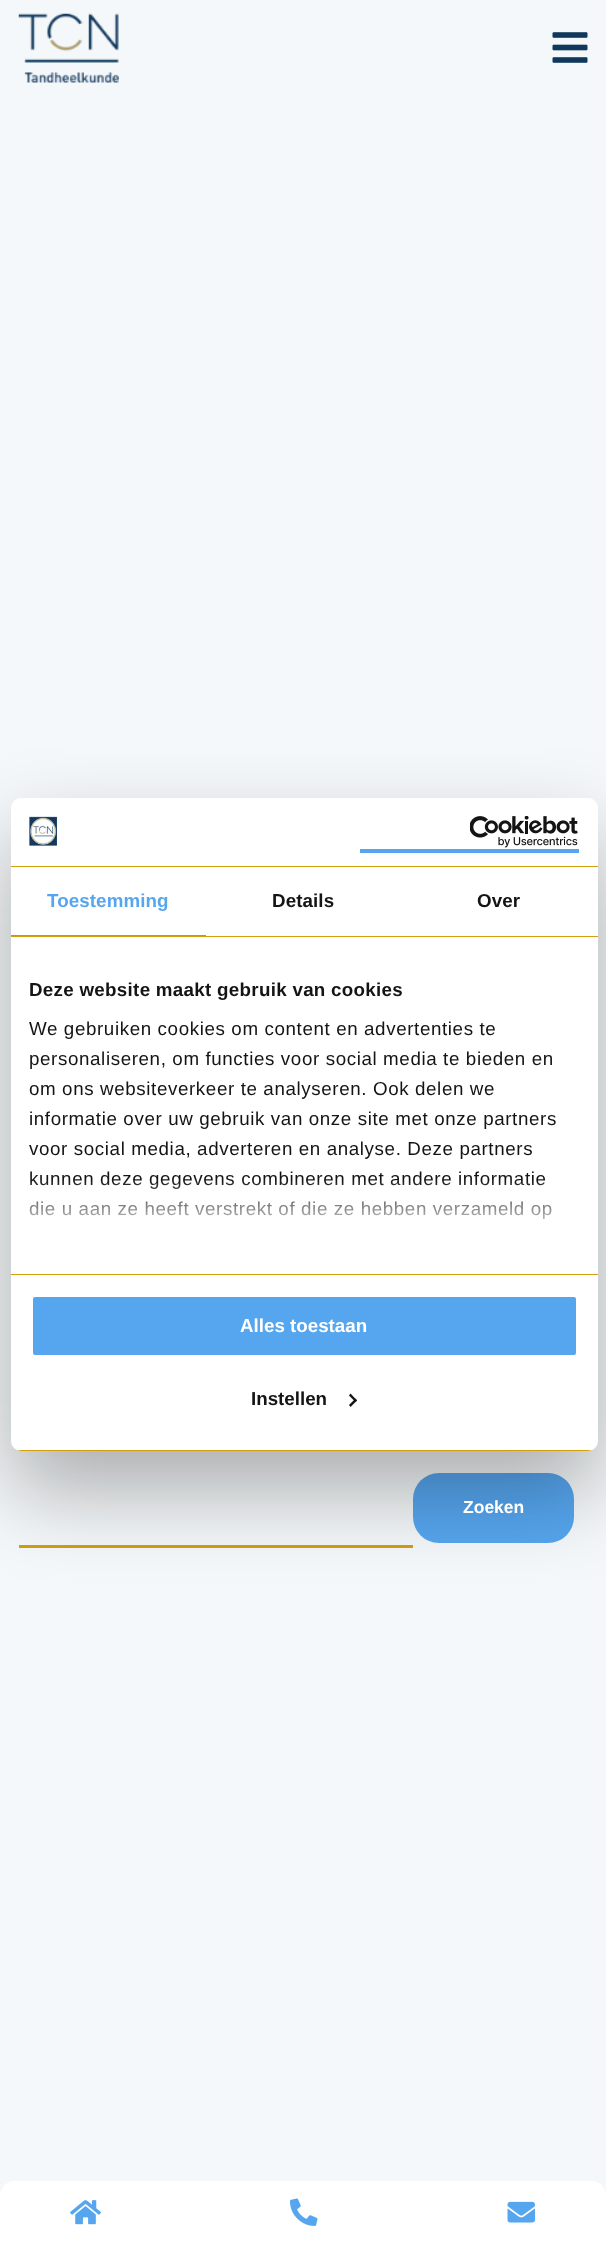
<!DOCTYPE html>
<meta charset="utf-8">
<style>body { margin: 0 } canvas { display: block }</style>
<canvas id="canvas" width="606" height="2246"></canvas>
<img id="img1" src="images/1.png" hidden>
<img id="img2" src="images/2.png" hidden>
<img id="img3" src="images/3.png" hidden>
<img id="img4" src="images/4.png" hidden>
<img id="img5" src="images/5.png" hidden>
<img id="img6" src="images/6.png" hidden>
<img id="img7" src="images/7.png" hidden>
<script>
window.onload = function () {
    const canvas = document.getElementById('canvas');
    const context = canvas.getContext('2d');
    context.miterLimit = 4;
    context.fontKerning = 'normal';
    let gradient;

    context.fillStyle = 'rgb(245, 248, 250)';
    context.fillRect(0, 0, 606, 2246);
    context.drawImage(document.getElementById('img1'), 18, 13, 101, 70);
    context.drawImage(document.getElementById('img2'), 552, 32, 36, 31);
    context.fillStyle = 'rgb(255, 255, 255)';
    context.beginPath();
    context.roundRect(0, 2181, 606, 65, [15, 15, 0, 0]);
    context.fill();
    context.drawImage(document.getElementById('img3'), 70, 2200, 31, 25);
    context.drawImage(document.getElementById('img4'), 290, 2198, 28, 28);
    context.drawImage(document.getElementById('img5'), 507, 2201, 28, 22);
    context.fillStyle = 'rgb(86, 166, 239)';
    context.beginPath();
    context.roundRect(413, 1473, 161, 70, 26);
    context.fill();
    context.fillStyle = 'rgb(212, 159, 13)';
    context.fillRect(19, 1545, 394, 3);
    context.fillStyle = 'rgba(0, 0, 0, 0.3)';
    context.filter = 'blur(42.5px)';
    context.beginPath();
    context.roundRect(11, 838, 587, 653, 10);
    context.fill();
    context.filter = 'none';
    context.fillStyle = 'rgb(255, 255, 255)';
    context.beginPath();
    context.roundRect(11, 798, 587, 653, 10);
    context.fill();
    context.fillStyle = 'rgb(212, 159, 13)';
    context.fillRect(11, 866, 587, 1);
    context.drawImage(document.getElementById('img6'), 29, 816, 28, 30);
    context.drawImage(document.getElementById('img7'), 470, 816, 108, 32);
    context.fillStyle = 'rgb(86, 166, 239)';
    context.fillRect(360, 849, 219, 4);
    context.fillStyle = 'rgb(212, 159, 13)';
    context.fillRect(11, 936, 587, 1);
    context.fillStyle = 'rgb(86, 166, 239)';
    context.fillRect(11, 935, 195, 1);
    context.fillStyle = 'rgb(212, 159, 13)';
    context.fillRect(11, 1274, 587, 1);
    context.save();
    context.beginPath();
    context.roundRect(11, 798, 587, 653, 10);
    context.clip();
    context.fillRect(11, 1450, 587, 1);
    context.restore();
    context.fillStyle = 'rgb(86, 166, 239)';
    context.beginPath();
    context.roundRect(31.5, 1295.5, 546, 61, 3.5);
    context.fill();
    context.strokeStyle = 'rgb(255, 255, 255)';
    context.lineWidth = 3;
    context.stroke();
    context.fillStyle = 'rgb(20, 20, 20)';
    context.beginPath();
    context.moveTo(350.5, 1393.5);
    context.lineTo(357, 1400.5);
    context.lineTo(355.5, 1402);
    context.lineTo(349, 1395.5);
    context.closePath();
    context.fill();
    context.beginPath();
    context.moveTo(355.5, 1398.5);
    context.lineTo(357, 1400.5);
    context.lineTo(350.5, 1407);
    context.lineTo(349, 1405);
    context.closePath();
    context.fill();
    context.letterSpacing = '0.1px';
    context.font = 'bold 18.75px Liberation Sans';
    context.fillStyle = 'rgb(86, 166, 239)';
    context.fillText('Toestemming', 47, 907);
    context.fillStyle = 'rgb(20, 20, 20)';
    context.fillText('Details', 272, 907);
    context.fillText('Over', 477, 907);
    context.letterSpacing = '0.3px';
    context.fillText('Deze website maakt gebruik van cookies', 29, 996);
    context.letterSpacing = '0.62px';
    context.font = '18.75px Liberation Sans';
    context.fillText('We gebruiken cookies om content en advertenties te', 29, 1035);
    context.fillText('personaliseren, om functies voor social media te bieden en', 29, 1065);
    context.fillText('om ons websiteverkeer te analyseren. Ook delen we', 29, 1095);
    context.fillText('informatie over uw gebruik van onze site met onze partners', 29, 1125);
    context.fillText('voor social media, adverteren en analyse. Deze partners', 29, 1155);
    context.fillText('kunnen deze gegevens combineren met andere informatie', 29, 1185);
    context.fillText('die u aan ze heeft verstrekt of die ze hebben verzameld op', 29, 1215);
    gradient = context.createLinearGradient(296, 1273, 296, 1179);
    gradient.addColorStop(0, 'rgb(255, 255, 255)');
    gradient.addColorStop(0.5, 'rgba(255, 255, 255, 0.8)');
    gradient.addColorStop(1, 'rgba(255, 255, 255, 0)');
    context.fillStyle = gradient;
    context.fillRect(29, 1180, 523, 39);
    context.letterSpacing = '0px';
    context.font = 'bold 18.75px Liberation Sans';
    context.fillStyle = 'rgb(255, 255, 255)';
    context.fillText('Alles toestaan', 240, 1332);
    context.fillStyle = 'rgb(20, 20, 20)';
    context.fillText('Instellen', 251, 1405);
    context.font = 'bold 17.5px Liberation Sans';
    context.fillStyle = 'rgb(255, 255, 255)';
    context.fillText('Zoeken', 463, 1513);
};
</script>
